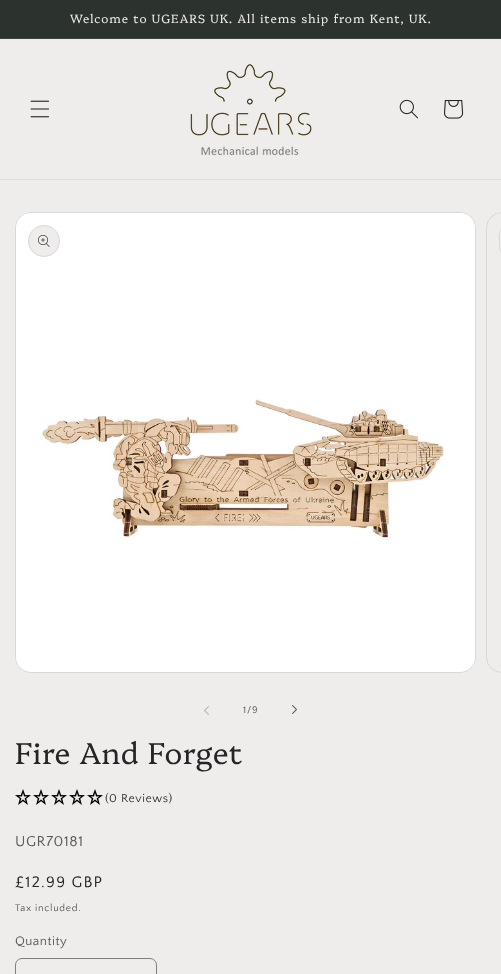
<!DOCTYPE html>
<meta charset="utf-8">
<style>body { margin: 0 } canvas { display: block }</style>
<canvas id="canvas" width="501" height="974"></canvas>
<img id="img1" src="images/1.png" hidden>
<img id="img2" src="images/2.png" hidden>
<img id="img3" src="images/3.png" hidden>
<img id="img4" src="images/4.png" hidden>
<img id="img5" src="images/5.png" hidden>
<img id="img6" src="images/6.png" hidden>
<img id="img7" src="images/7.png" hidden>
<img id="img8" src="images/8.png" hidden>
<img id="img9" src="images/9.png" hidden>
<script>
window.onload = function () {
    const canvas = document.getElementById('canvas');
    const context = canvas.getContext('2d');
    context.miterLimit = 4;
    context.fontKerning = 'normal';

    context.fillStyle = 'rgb(239, 236, 236)';
    context.fillRect(0, 0, 501, 974);
    context.fillStyle = 'rgb(44, 51, 47)';
    context.fillRect(0, 0, 501, 38);
    context.fillStyle = 'rgb(60, 66, 62)';
    context.fillRect(0, 38, 501, 1);
    context.fillStyle = 'rgb(223, 220, 220)';
    context.fillRect(0, 179, 501, 1);
    context.drawImage(document.getElementById('img1'), 30, 100, 20, 18);
    context.drawImage(document.getElementById('img2'), 190, 64, 122, 92);
    context.drawImage(document.getElementById('img3'), 399, 99, 19, 20);
    context.drawImage(document.getElementById('img4'), 444, 100, 20, 19);
    context.beginPath();
    context.roundRect(15.5, 212.5, 460, 460, 15.5);
    context.strokeStyle = 'rgb(219, 216, 216)';
    context.stroke();
    context.drawImage(document.getElementById('img5'), 16, 213, 459, 459);
    context.fillStyle = 'rgb(239, 236, 236)';
    context.beginPath();
    context.arc(44, 241, 16, 0, 2 * Math.PI);
    context.fill();
    context.beginPath();
    context.arc(44, 241, 15.5, 0, 2 * Math.PI);
    context.strokeStyle = 'rgba(37, 37, 37, 0.1)';
    context.stroke();
    context.drawImage(document.getElementById('img6'), 38, 235, 12, 12);
    context.beginPath();
    context.roundRect(486.5, 212.5, 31, 460, 15.5);
    context.strokeStyle = 'rgb(219, 216, 216)';
    context.stroke();
    context.beginPath();
    context.roundRect(499.5, 225.5, 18, 31, 15.5);
    context.stroke();
    context.drawImage(document.getElementById('img7'), 204, 706, 5, 9);
    context.drawImage(document.getElementById('img8'), 292, 705, 5, 9);
    context.drawImage(document.getElementById('img9'), 15, 789, 16, 16);
    context.drawImage(document.getElementById('img9'), 33, 789, 16, 16);
    context.drawImage(document.getElementById('img9'), 51, 789, 16, 16);
    context.drawImage(document.getElementById('img9'), 69, 789, 16, 16);
    context.drawImage(document.getElementById('img9'), 87, 789, 16, 16);
    context.beginPath();
    context.roundRect(15.5, 958.5, 141, 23, 6.5);
    context.strokeStyle = 'rgb(128, 127, 127)';
    context.stroke();
    context.letterSpacing = '1px';
    context.font = '300 12px Platypi';
    context.fillText('Welcome to UGEARS UK. All items ship from Kent, UK.', 70, 23);
    context.letterSpacing = '0.75px';
    context.font = '10px Quattrocento Sans';
    context.fillStyle = 'rgb(88, 87, 87)';
    context.fillText('1/9', 243, 713);
    context.letterSpacing = '0.6px';
    context.font = '300 30px Platypi';
    context.fillStyle = 'rgb(37, 37, 37)';
    context.fillText('Fire And Forget', 15, 764);
    context.font = '12px Quattrocento Sans';
    context.fillStyle = 'rgb(51, 51, 51)';
    context.fillText('(0 Reviews)', 105, 802);
    context.font = '15px Quattrocento Sans';
    context.fillStyle = 'rgb(88, 87, 87)';
    context.fillText('UGR70181', 15, 846);
    context.letterSpacing = '1.25px';
    context.font = '16px Quattrocento Sans';
    context.fillStyle = 'rgb(37, 37, 37)';
    context.fillText('£12.99 GBP', 15, 887);
    context.letterSpacing = '0.75px';
    context.font = '10px Quattrocento Sans';
    context.fillStyle = 'rgb(88, 87, 87)';
    context.fillText('Tax included.', 15, 911);
    context.letterSpacing = '0.5px';
    context.font = '13px Quattrocento Sans';
    context.fillText('Quantity', 15, 945);
};
</script>
